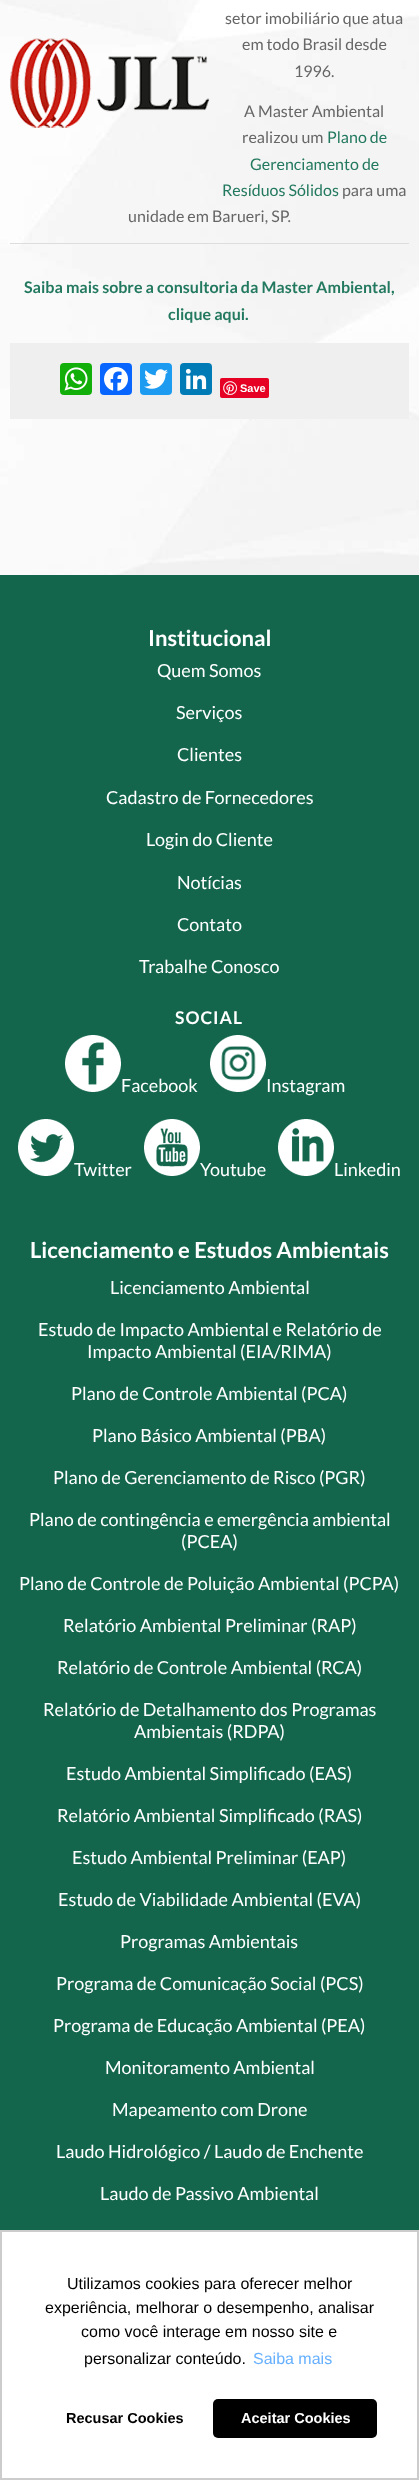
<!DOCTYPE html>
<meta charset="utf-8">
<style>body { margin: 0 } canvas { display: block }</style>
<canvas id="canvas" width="419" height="2480"></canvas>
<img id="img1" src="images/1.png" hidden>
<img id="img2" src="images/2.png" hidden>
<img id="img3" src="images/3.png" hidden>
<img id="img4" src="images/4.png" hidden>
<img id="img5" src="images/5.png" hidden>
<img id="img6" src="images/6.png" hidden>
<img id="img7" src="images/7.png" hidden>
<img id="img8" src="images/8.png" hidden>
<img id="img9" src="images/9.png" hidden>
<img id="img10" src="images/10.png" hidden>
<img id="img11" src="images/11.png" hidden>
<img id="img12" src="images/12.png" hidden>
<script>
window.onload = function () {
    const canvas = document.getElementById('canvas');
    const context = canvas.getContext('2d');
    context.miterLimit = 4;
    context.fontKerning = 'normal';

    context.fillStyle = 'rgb(255, 255, 255)';
    context.fillRect(0, 0, 419, 2480);
    context.drawImage(document.getElementById('img1'), 0, 0, 419, 575);
    context.drawImage(document.getElementById('img2'), 10, 38, 200, 90);
    context.fillStyle = 'rgb(221, 221, 221)';
    context.fillRect(10, 243, 399, 1);
    context.fillStyle = 'rgb(239, 239, 239)';
    context.fillRect(10, 343, 399, 76);
    context.fillStyle = 'rgb(18, 175, 10)';
    context.beginPath();
    context.roundRect(60, 363, 32, 32, 4);
    context.fill();
    context.drawImage(document.getElementById('img3'), 64, 367, 24, 24);
    context.fillStyle = 'rgb(8, 102, 255)';
    context.beginPath();
    context.roundRect(100, 363, 32, 32, 4);
    context.fill();
    context.drawImage(document.getElementById('img4'), 104, 367, 24, 24);
    context.fillStyle = 'rgb(29, 155, 240)';
    context.beginPath();
    context.roundRect(140, 363, 32, 32, 4);
    context.fill();
    context.drawImage(document.getElementById('img5'), 144, 369, 24, 20);
    context.fillStyle = 'rgb(0, 123, 181)';
    context.beginPath();
    context.roundRect(180, 363, 32, 32, 4);
    context.fill();
    context.drawImage(document.getElementById('img6'), 185, 368, 22, 22);
    context.fillStyle = 'rgb(230, 0, 35)';
    context.beginPath();
    context.roundRect(220, 378, 49, 20, 2);
    context.fill();
    context.drawImage(document.getElementById('img7'), 223, 381, 14, 14);
    context.fillStyle = 'rgb(19, 102, 76)';
    context.fillRect(0, 575, 419, 1655);
    context.drawImage(document.getElementById('img8'), 65, 1035, 56, 57);
    context.drawImage(document.getElementById('img9'), 210, 1035, 56, 57);
    context.drawImage(document.getElementById('img10'), 18, 1119, 56, 57);
    context.drawImage(document.getElementById('img11'), 144, 1119, 56, 57);
    context.drawImage(document.getElementById('img12'), 278, 1119, 56, 57);
    context.strokeStyle = 'rgb(204, 204, 204)';
    context.lineWidth = 2;
    context.strokeRect(1, 2231, 417, 248);
    context.fillStyle = 'rgb(0, 0, 0)';
    context.beginPath();
    context.roundRect(213, 2399, 164, 39, 5);
    context.fill();
    context.font = '16px Lato';
    context.fillStyle = 'rgb(102, 102, 102)';
    context.fillText('setor imobiliário que atua', 225, 24);
    context.fillText('em todo Brasil desde', 242, 50);
    context.fillText('1996.', 294, 77);
    context.fillText('A Master Ambiental', 244, 117);
    context.fillText('realizou um', 242, 143);
    context.fillStyle = 'rgb(35, 121, 95)';
    context.fillText('Plano de', 327, 143);
    context.fillText('Gerenciamento de', 250, 170);
    context.fillText('Resíduos Sólidos', 222, 196);
    context.fillStyle = 'rgb(102, 102, 102)';
    context.fillText('para uma', 342, 196);
    context.fillText('unidade em Barueri, SP.', 128, 222);
    context.font = 'bold 16px Lato';
    context.fillStyle = 'rgb(35, 121, 95)';
    context.fillText('Saiba mais sobre a consultoria da Master Ambiental,', 24, 293);
    context.fillText('clique aqui.', 168, 320);
    context.font = 'bold 11px Liberation Sans';
    context.fillStyle = 'rgb(255, 255, 255)';
    context.fillText('Save', 240, 392);
    context.font = 'bold 22px Lato';
    context.fillText('Institucional', 148, 646);
    context.font = '18px Lato';
    context.fillText('Quem Somos', 157, 677);
    context.fillText('Serviços', 176, 719);
    context.fillText('Clientes', 177, 761);
    context.fillText('Cadastro de Fornecedores', 106, 804);
    context.fillText('Login do Cliente', 146, 846);
    context.fillText('Notícias', 177, 889);
    context.fillText('Contato', 177, 931);
    context.fillText('Trabalhe Conosco', 139, 973);
    context.letterSpacing = '1px';
    context.font = 'bold 17.5px Lato';
    context.fillText('SOCIAL', 175, 1024);
    context.letterSpacing = '0px';
    context.font = '18px Lato';
    context.fillText('Facebook', 121, 1092);
    context.fillText('Instagram', 266, 1092);
    context.fillText('Twitter', 74, 1176);
    context.fillText('Youtube', 200, 1176);
    context.fillText('Linkedin', 334, 1176);
    context.font = 'bold 22px Lato';
    context.fillText('Licenciamento e Estudos Ambientais', 30, 1258);
    context.font = '18px Lato';
    context.fillText('Licenciamento Ambiental', 110, 1294);
    context.fillText('Estudo de Impacto Ambiental e Relatório de', 38, 1336);
    context.fillText('Impacto Ambiental (EIA/RIMA)', 87, 1358);
    context.fillText('Plano de Controle Ambiental (PCA)', 71, 1400);
    context.fillText('Plano Básico Ambiental (PBA)', 92, 1442);
    context.fillText('Plano de Gerenciamento de Risco (PGR)', 53, 1484);
    context.fillText('Plano de contingência e emergência ambiental', 29, 1526);
    context.fillText('(PCEA)', 181, 1548);
    context.fillText('Plano de Controle de Poluição Ambiental (PCPA)', 19, 1590);
    context.fillText('Relatório Ambiental Preliminar (RAP)', 63, 1632);
    context.fillText('Relatório de Controle Ambiental (RCA)', 57, 1674);
    context.fillText('Relatório de Detalhamento dos Programas', 43, 1716);
    context.fillText('Ambientais (RDPA)', 134, 1738);
    context.fillText('Estudo Ambiental Simplificado (EAS)', 66, 1780);
    context.fillText('Relatório Ambiental Simplificado (RAS)', 57, 1822);
    context.fillText('Estudo Ambiental Preliminar (EAP)', 72, 1864);
    context.fillText('Estudo de Viabilidade Ambiental (EVA)', 58, 1906);
    context.fillText('Programas Ambientais', 120, 1948);
    context.fillText('Programa de Comunicação Social (PCS)', 56, 1990);
    context.fillText('Programa de Educação Ambiental (PEA)', 53, 2032);
    context.fillText('Monitoramento Ambiental', 105, 2074);
    context.fillText('Mapeamento com Drone', 112, 2116);
    context.fillText('Laudo Hidrológico / Laudo de Enchente', 56, 2158);
    context.fillText('Laudo de Passivo Ambiental', 100, 2200);
    context.font = '16px Liberation Sans';
    context.fillStyle = 'rgb(0, 0, 0)';
    context.fillText('Utilizamos cookies para oferecer melhor', 67, 2289);
    context.fillText('experiência, melhorar o desempenho, analisar', 45, 2313);
    context.fillText('como você interage em nosso site e', 81, 2337);
    context.fillText('personalizar conteúdo.', 84, 2364);
    context.fillStyle = 'rgb(102, 176, 255)';
    context.fillText('Saiba mais', 253, 2364);
    context.font = 'bold 14.5px Liberation Sans';
    context.fillStyle = 'rgb(0, 0, 0)';
    context.fillText('Recusar Cookies', 66, 2423);
    context.fillStyle = 'rgb(255, 255, 255)';
    context.fillText('Aceitar Cookies', 241, 2423);
};
</script>
